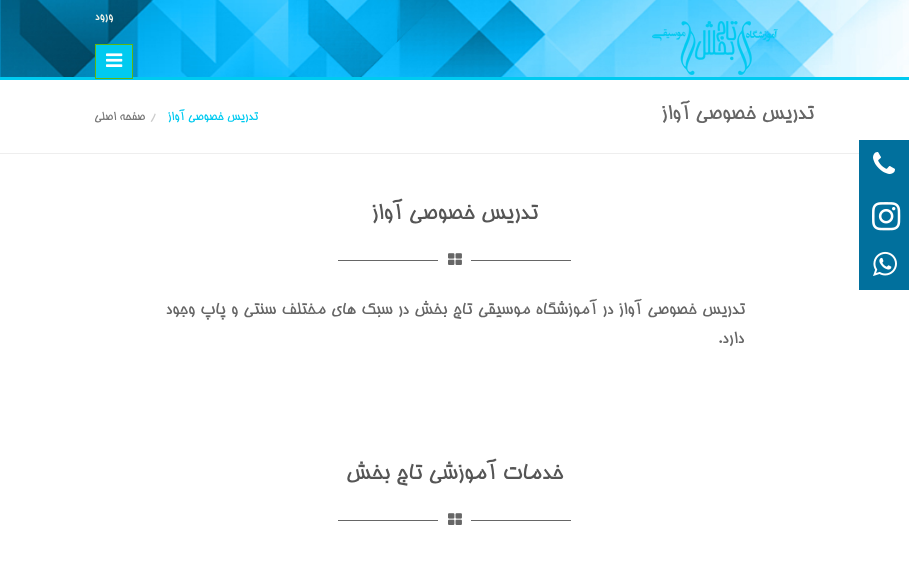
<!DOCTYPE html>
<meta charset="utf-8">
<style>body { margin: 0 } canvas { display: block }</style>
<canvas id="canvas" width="909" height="561"></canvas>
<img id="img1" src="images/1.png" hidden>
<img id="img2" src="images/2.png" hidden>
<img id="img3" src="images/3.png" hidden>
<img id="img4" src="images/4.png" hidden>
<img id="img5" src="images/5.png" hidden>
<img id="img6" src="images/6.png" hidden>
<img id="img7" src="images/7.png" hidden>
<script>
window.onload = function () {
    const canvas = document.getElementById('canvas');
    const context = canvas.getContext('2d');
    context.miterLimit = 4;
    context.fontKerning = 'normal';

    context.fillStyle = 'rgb(255, 255, 255)';
    context.fillRect(0, 0, 909, 561);
    context.drawImage(document.getElementById('img1'), 0, 0, 909, 77);
    context.fillStyle = 'rgb(0, 202, 240)';
    context.fillRect(0, 77, 909, 3);
    context.drawImage(document.getElementById('img2'), 652, 21, 126, 54);
    context.fillRect(96, 45, 36, 32);
    context.strokeStyle = 'rgb(95, 182, 17)';
    context.strokeRect(95.5, 44.5, 37, 34);
    context.drawImage(document.getElementById('img3'), 106, 53, 17, 14);
    context.fillStyle = 'rgb(238, 238, 238)';
    context.fillRect(0, 153, 859, 1);
    context.fillStyle = 'rgb(1, 112, 157)';
    context.fillRect(859, 140, 50, 150);
    context.drawImage(document.getElementById('img4'), 873, 152, 22, 22);
    context.drawImage(document.getElementById('img5'), 872, 202, 29, 29);
    context.drawImage(document.getElementById('img6'), 873, 251, 24, 25);
    context.fillStyle = 'rgb(102, 102, 102)';
    context.fillRect(471, 260, 100, 1);
    context.drawImage(document.getElementById('img7'), 448, 253, 14, 12);
    context.fillRect(338, 260, 100, 1);
    context.fillRect(471, 520, 100, 1);
    context.drawImage(document.getElementById('img7'), 448, 513, 14, 12);
    context.fillRect(338, 520, 100, 1);
    context.direction = 'rtl';
    context.font = '13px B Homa';
    context.fillStyle = 'rgb(243, 243, 233)';
    context.fillText('ورود', 113, 20);
    context.font = '22px B Homa';
    context.fillStyle = 'rgb(102, 102, 102)';
    context.fillText('تدریس خصوصی آواز', 814, 119);
    context.font = '13px B Homa';
    context.fillStyle = 'rgb(0, 202, 240)';
    context.fillText('تدریس خصوصی آواز', 258, 120);
    context.direction = 'ltr';
    context.fillStyle = 'rgb(204, 204, 204)';
    context.fillText('/', 150, 120);
    context.direction = 'rtl';
    context.fillStyle = 'rgb(119, 119, 119)';
    context.fillText('صفحه اصلی', 145, 120);
    context.font = '24px B Homa';
    context.fillStyle = 'rgb(85, 85, 85)';
    context.fillText('تدریس خصوصی آواز', 538, 219);
    context.wordSpacing = '0.8px';
    context.font = '18px B Homa';
    context.fillStyle = 'rgb(102, 102, 102)';
    context.fillText('تدریس خصوصی آواز در آموزشگاه موسیقی تاج بخش در سبک های مختلف سنتی و پاپ وجود', 745, 314);
    context.wordSpacing = '0px';
    context.fillText('دارد.', 744, 343);
    context.font = '24px B Homa';
    context.fillStyle = 'rgb(85, 85, 85)';
    context.fillText('خدمات آموزشی تاج بخش', 563, 479);
};
</script>
